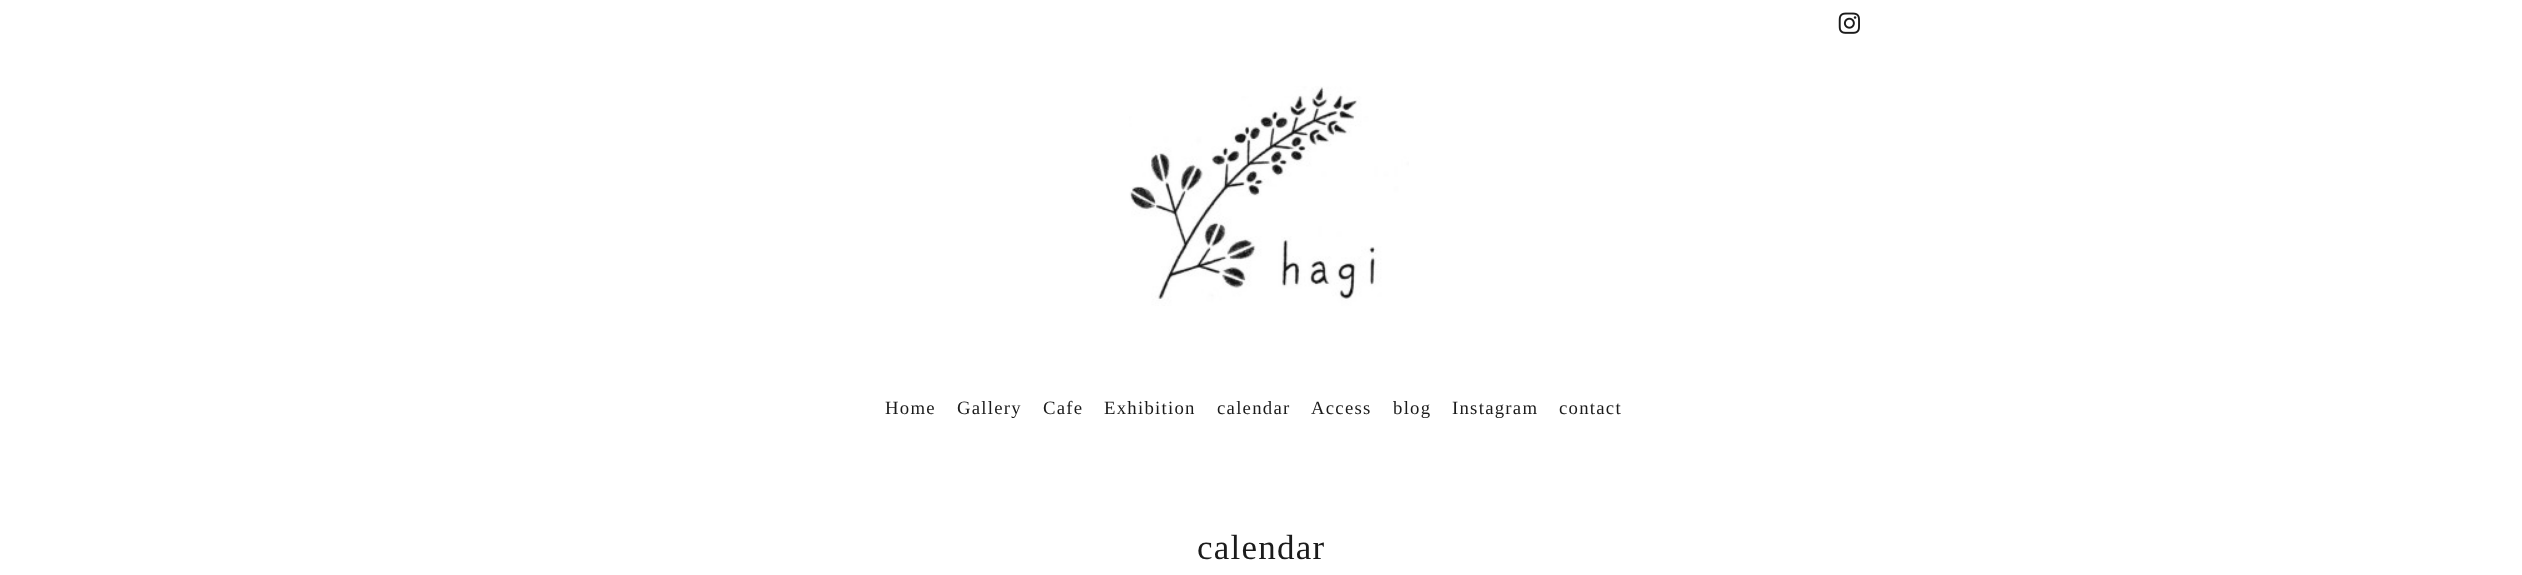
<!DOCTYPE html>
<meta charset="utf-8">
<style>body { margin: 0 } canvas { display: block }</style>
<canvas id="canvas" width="2522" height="575"></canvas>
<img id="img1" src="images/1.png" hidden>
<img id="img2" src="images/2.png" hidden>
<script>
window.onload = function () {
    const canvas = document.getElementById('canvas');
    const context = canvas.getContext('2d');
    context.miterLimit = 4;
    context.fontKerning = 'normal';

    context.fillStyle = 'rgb(255, 255, 255)';
    context.fillRect(0, 0, 2522, 575);
    context.drawImage(document.getElementById('img1'), 1838, 12, 22, 22);
    context.drawImage(document.getElementById('img2'), 1129, 86, 280, 220);
    context.letterSpacing = '1.25px';
    context.font = '18.75px Liberation Serif';
    context.fillStyle = 'rgb(27, 27, 27)';
    context.fillText('Home', 885, 414);
    context.fillText('Gallery', 957, 414);
    context.fillText('Cafe', 1043, 414);
    context.fillText('Exhibition', 1104, 414);
    context.fillText('calendar', 1217, 414);
    context.fillText('Access', 1311, 414);
    context.fillText('blog', 1393, 414);
    context.fillText('Instagram', 1452, 414);
    context.fillText('contact', 1559, 414);
    context.font = '35px Liberation Serif';
    context.fillText('calendar', 1197, 559);
};
</script>
